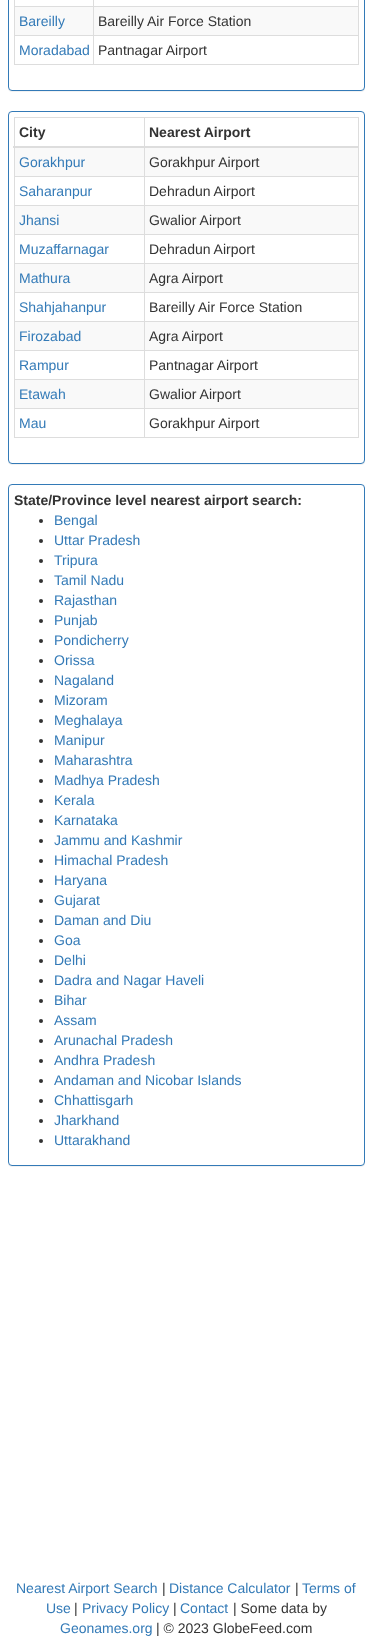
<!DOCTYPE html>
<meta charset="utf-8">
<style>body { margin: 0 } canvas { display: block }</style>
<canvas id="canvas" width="372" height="1648"></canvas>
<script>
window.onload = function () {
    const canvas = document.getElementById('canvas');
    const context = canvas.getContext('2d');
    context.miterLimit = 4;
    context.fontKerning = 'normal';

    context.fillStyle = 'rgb(255, 255, 255)';
    context.fillRect(0, 0, 372, 1648);
    context.fillStyle = 'rgba(0, 0, 0, 0.05)';
    context.filter = 'blur(0.5px)';
    context.beginPath();
    context.roundRect(8, -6, 357, 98, 4);
    context.fill();
    context.filter = 'none';
    context.fillStyle = 'rgb(255, 255, 255)';
    context.beginPath();
    context.roundRect(8.5, -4.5, 356, 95, 3.5);
    context.fill();
    context.strokeStyle = 'rgb(51, 122, 183)';
    context.stroke();
    context.fillStyle = 'rgb(221, 221, 221)';
    context.fillRect(358, 0, 1, 65);
    context.fillRect(14, 64, 345, 1);
    context.fillRect(14, 0, 1, 65);
    context.fillRect(93, 6, 266, 1);
    context.fillStyle = 'rgb(249, 249, 249)';
    context.fillRect(15, 7, 343, 28);
    context.fillStyle = 'rgb(221, 221, 221)';
    context.fillRect(93, 35, 266, 1);
    context.fillRect(93, 35, 1, 30);
    context.fillRect(14, 35, 80, 1);
    context.fillRect(93, 6, 1, 30);
    context.fillRect(14, 6, 80, 1);
    context.fillRect(93, 0, 1, 7);
    context.fillStyle = 'rgba(0, 0, 0, 0.05)';
    context.filter = 'blur(0.5px)';
    context.beginPath();
    context.roundRect(8, 112, 357, 353, 4);
    context.fill();
    context.filter = 'none';
    context.fillStyle = 'rgb(255, 255, 255)';
    context.beginPath();
    context.roundRect(8.5, 111.5, 356, 352, 3.5);
    context.fill();
    context.stroke();
    context.fillStyle = 'rgb(221, 221, 221)';
    context.fillRect(14, 117, 345, 1);
    context.fillRect(358, 117, 1, 321);
    context.fillRect(14, 437, 345, 1);
    context.fillRect(14, 117, 1, 321);
    context.fillStyle = 'rgb(249, 249, 249)';
    context.fillRect(15, 148, 343, 28);
    context.fillStyle = 'rgb(221, 221, 221)';
    context.fillRect(144, 176, 215, 1);
    context.fillRect(144, 205, 215, 1);
    context.fillStyle = 'rgb(249, 249, 249)';
    context.fillRect(15, 206, 343, 28);
    context.fillStyle = 'rgb(221, 221, 221)';
    context.fillRect(144, 234, 215, 1);
    context.fillRect(144, 263, 215, 1);
    context.fillStyle = 'rgb(249, 249, 249)';
    context.fillRect(15, 264, 343, 28);
    context.fillStyle = 'rgb(221, 221, 221)';
    context.fillRect(144, 292, 215, 1);
    context.fillRect(144, 321, 215, 1);
    context.fillStyle = 'rgb(249, 249, 249)';
    context.fillRect(15, 322, 343, 28);
    context.fillStyle = 'rgb(221, 221, 221)';
    context.fillRect(144, 350, 215, 1);
    context.fillRect(144, 379, 215, 1);
    context.fillStyle = 'rgb(249, 249, 249)';
    context.fillRect(15, 380, 343, 28);
    context.fillStyle = 'rgb(221, 221, 221)';
    context.fillRect(144, 408, 215, 1);
    context.fillRect(144, 408, 1, 30);
    context.fillRect(14, 408, 131, 1);
    context.fillRect(144, 379, 1, 30);
    context.fillRect(14, 379, 131, 1);
    context.fillRect(144, 350, 1, 30);
    context.fillRect(14, 350, 131, 1);
    context.fillRect(144, 321, 1, 30);
    context.fillRect(14, 321, 131, 1);
    context.fillRect(144, 292, 1, 30);
    context.fillRect(14, 292, 131, 1);
    context.fillRect(144, 263, 1, 30);
    context.fillRect(14, 263, 131, 1);
    context.fillRect(144, 234, 1, 30);
    context.fillRect(14, 234, 131, 1);
    context.fillRect(144, 205, 1, 30);
    context.fillRect(14, 205, 131, 1);
    context.fillRect(144, 176, 1, 30);
    context.fillRect(14, 176, 131, 1);
    context.fillRect(144, 117, 1, 60);
    context.fillRect(13, 146, 346, 2);
    context.fillStyle = 'rgba(0, 0, 0, 0.05)';
    context.filter = 'blur(0.5px)';
    context.beginPath();
    context.roundRect(8, 485, 357, 682, 4);
    context.fill();
    context.filter = 'none';
    context.fillStyle = 'rgb(255, 255, 255)';
    context.beginPath();
    context.roundRect(8.5, 484.5, 356, 681, 3.5);
    context.fill();
    context.stroke();
    context.fillStyle = 'rgb(51, 51, 51)';
    context.beginPath();
    context.arc(41, 521, 2, 0, 2 * Math.PI);
    context.fill();
    context.beginPath();
    context.arc(41, 541, 2, 0, 2 * Math.PI);
    context.fill();
    context.beginPath();
    context.arc(41, 561, 2, 0, 2 * Math.PI);
    context.fill();
    context.beginPath();
    context.arc(41, 581, 2, 0, 2 * Math.PI);
    context.fill();
    context.beginPath();
    context.arc(41, 601, 2, 0, 2 * Math.PI);
    context.fill();
    context.beginPath();
    context.arc(41, 621, 2, 0, 2 * Math.PI);
    context.fill();
    context.beginPath();
    context.arc(41, 641, 2, 0, 2 * Math.PI);
    context.fill();
    context.beginPath();
    context.arc(41, 661, 2, 0, 2 * Math.PI);
    context.fill();
    context.beginPath();
    context.arc(41, 681, 2, 0, 2 * Math.PI);
    context.fill();
    context.beginPath();
    context.arc(41, 701, 2, 0, 2 * Math.PI);
    context.fill();
    context.beginPath();
    context.arc(41, 721, 2, 0, 2 * Math.PI);
    context.fill();
    context.beginPath();
    context.arc(41, 741, 2, 0, 2 * Math.PI);
    context.fill();
    context.beginPath();
    context.arc(41, 761, 2, 0, 2 * Math.PI);
    context.fill();
    context.beginPath();
    context.arc(41, 781, 2, 0, 2 * Math.PI);
    context.fill();
    context.beginPath();
    context.arc(41, 801, 2, 0, 2 * Math.PI);
    context.fill();
    context.beginPath();
    context.arc(41, 821, 2, 0, 2 * Math.PI);
    context.fill();
    context.beginPath();
    context.arc(41, 841, 2, 0, 2 * Math.PI);
    context.fill();
    context.beginPath();
    context.arc(41, 861, 2, 0, 2 * Math.PI);
    context.fill();
    context.beginPath();
    context.arc(41, 881, 2, 0, 2 * Math.PI);
    context.fill();
    context.beginPath();
    context.arc(41, 901, 2, 0, 2 * Math.PI);
    context.fill();
    context.beginPath();
    context.arc(41, 921, 2, 0, 2 * Math.PI);
    context.fill();
    context.beginPath();
    context.arc(41, 941, 2, 0, 2 * Math.PI);
    context.fill();
    context.beginPath();
    context.arc(41, 961, 2, 0, 2 * Math.PI);
    context.fill();
    context.beginPath();
    context.arc(41, 981, 2, 0, 2 * Math.PI);
    context.fill();
    context.beginPath();
    context.arc(41, 1001, 2, 0, 2 * Math.PI);
    context.fill();
    context.beginPath();
    context.arc(41, 1021, 2, 0, 2 * Math.PI);
    context.fill();
    context.beginPath();
    context.arc(41, 1041, 2, 0, 2 * Math.PI);
    context.fill();
    context.beginPath();
    context.arc(41, 1061, 2, 0, 2 * Math.PI);
    context.fill();
    context.beginPath();
    context.arc(41, 1081, 2, 0, 2 * Math.PI);
    context.fill();
    context.beginPath();
    context.arc(41, 1101, 2, 0, 2 * Math.PI);
    context.fill();
    context.beginPath();
    context.arc(41, 1121, 2, 0, 2 * Math.PI);
    context.fill();
    context.beginPath();
    context.arc(41, 1141, 2, 0, 2 * Math.PI);
    context.fill();
    context.font = '14px Liberation Sans';
    context.fillStyle = 'rgb(51, 122, 183)';
    context.fillText('Bareilly', 19, 26);
    context.fillStyle = 'rgb(51, 51, 51)';
    context.fillText('Bareilly Air Force Station', 98, 26);
    context.fillStyle = 'rgb(51, 122, 183)';
    context.fillText('Moradabad', 19, 55);
    context.fillStyle = 'rgb(51, 51, 51)';
    context.fillText('Pantnagar Airport', 98, 55);
    context.font = 'bold 14px Liberation Sans';
    context.fillText('City', 19, 137);
    context.fillText('Nearest Airport', 149, 137);
    context.font = '14px Liberation Sans';
    context.fillStyle = 'rgb(51, 122, 183)';
    context.fillText('Gorakhpur', 19, 167);
    context.fillStyle = 'rgb(51, 51, 51)';
    context.fillText('Gorakhpur Airport', 149, 167);
    context.fillStyle = 'rgb(51, 122, 183)';
    context.fillText('Saharanpur', 19, 196);
    context.fillStyle = 'rgb(51, 51, 51)';
    context.fillText('Dehradun Airport', 149, 196);
    context.fillStyle = 'rgb(51, 122, 183)';
    context.fillText('Jhansi', 19, 225);
    context.fillStyle = 'rgb(51, 51, 51)';
    context.fillText('Gwalior Airport', 149, 225);
    context.fillStyle = 'rgb(51, 122, 183)';
    context.fillText('Muzaffarnagar', 19, 254);
    context.fillStyle = 'rgb(51, 51, 51)';
    context.fillText('Dehradun Airport', 149, 254);
    context.fillStyle = 'rgb(51, 122, 183)';
    context.fillText('Mathura', 19, 283);
    context.fillStyle = 'rgb(51, 51, 51)';
    context.fillText('Agra Airport', 149, 283);
    context.fillStyle = 'rgb(51, 122, 183)';
    context.fillText('Shahjahanpur', 19, 312);
    context.fillStyle = 'rgb(51, 51, 51)';
    context.fillText('Bareilly Air Force Station', 149, 312);
    context.fillStyle = 'rgb(51, 122, 183)';
    context.fillText('Firozabad', 19, 341);
    context.fillStyle = 'rgb(51, 51, 51)';
    context.fillText('Agra Airport', 149, 341);
    context.fillStyle = 'rgb(51, 122, 183)';
    context.fillText('Rampur', 19, 370);
    context.fillStyle = 'rgb(51, 51, 51)';
    context.fillText('Pantnagar Airport', 149, 370);
    context.fillStyle = 'rgb(51, 122, 183)';
    context.fillText('Etawah', 19, 399);
    context.fillStyle = 'rgb(51, 51, 51)';
    context.fillText('Gwalior Airport', 149, 399);
    context.fillStyle = 'rgb(51, 122, 183)';
    context.fillText('Mau', 19, 428);
    context.fillStyle = 'rgb(51, 51, 51)';
    context.fillText('Gorakhpur Airport', 149, 428);
    context.font = 'bold 14px Liberation Sans';
    context.fillText('State/Province level nearest airport search:', 14, 505);
    context.font = '14px Liberation Sans';
    context.fillStyle = 'rgb(51, 122, 183)';
    context.fillText('Bengal', 54, 525);
    context.fillText('Uttar Pradesh', 54, 545);
    context.fillText('Tripura', 54, 565);
    context.fillText('Tamil Nadu', 54, 585);
    context.fillText('Rajasthan', 54, 605);
    context.fillText('Punjab', 54, 625);
    context.fillText('Pondicherry', 54, 645);
    context.fillText('Orissa', 54, 665);
    context.fillText('Nagaland', 54, 685);
    context.fillText('Mizoram', 54, 705);
    context.fillText('Meghalaya', 54, 725);
    context.fillText('Manipur', 54, 745);
    context.fillText('Maharashtra', 54, 765);
    context.fillText('Madhya Pradesh', 54, 785);
    context.fillText('Kerala', 54, 805);
    context.fillText('Karnataka', 54, 825);
    context.fillText('Jammu and Kashmir', 54, 845);
    context.fillText('Himachal Pradesh', 54, 865);
    context.fillText('Haryana', 54, 885);
    context.fillText('Gujarat', 54, 905);
    context.fillText('Daman and Diu', 54, 925);
    context.fillText('Goa', 54, 945);
    context.fillText('Delhi', 54, 965);
    context.fillText('Dadra and Nagar Haveli', 54, 985);
    context.fillText('Bihar', 54, 1005);
    context.fillText('Assam', 54, 1025);
    context.fillText('Arunachal Pradesh', 54, 1045);
    context.fillText('Andhra Pradesh', 54, 1065);
    context.fillText('Andaman and Nicobar Islands', 54, 1085);
    context.fillText('Chhattisgarh', 54, 1105);
    context.fillText('Jharkhand', 54, 1125);
    context.fillText('Uttarakhand', 54, 1145);
    context.fillText('Nearest Airport Search', 16, 1593);
    context.fillStyle = 'rgb(51, 51, 51)';
    context.fillText('|', 162, 1593);
    context.fillStyle = 'rgb(51, 122, 183)';
    context.fillText('Distance Calculator', 169, 1593);
    context.fillStyle = 'rgb(51, 51, 51)';
    context.fillText('|', 295, 1593);
    context.fillStyle = 'rgb(51, 122, 183)';
    context.fillText('Terms of', 302, 1593);
    context.fillText('Use', 46, 1613);
    context.fillStyle = 'rgb(51, 51, 51)';
    context.fillText('|', 74, 1613);
    context.fillStyle = 'rgb(51, 122, 183)';
    context.fillText('Privacy Policy', 82, 1613);
    context.fillStyle = 'rgb(51, 51, 51)';
    context.fillText('|', 173, 1613);
    context.fillStyle = 'rgb(51, 122, 183)';
    context.fillText('Contact', 180, 1613);
    context.fillStyle = 'rgb(51, 51, 51)';
    context.fillText('| Some data by', 233, 1613);
    context.fillStyle = 'rgb(51, 122, 183)';
    context.fillText('Geonames.org', 60, 1633);
    context.fillStyle = 'rgb(51, 51, 51)';
    context.fillText('| © 2023 GlobeFeed.com', 156, 1633);
};
</script>
